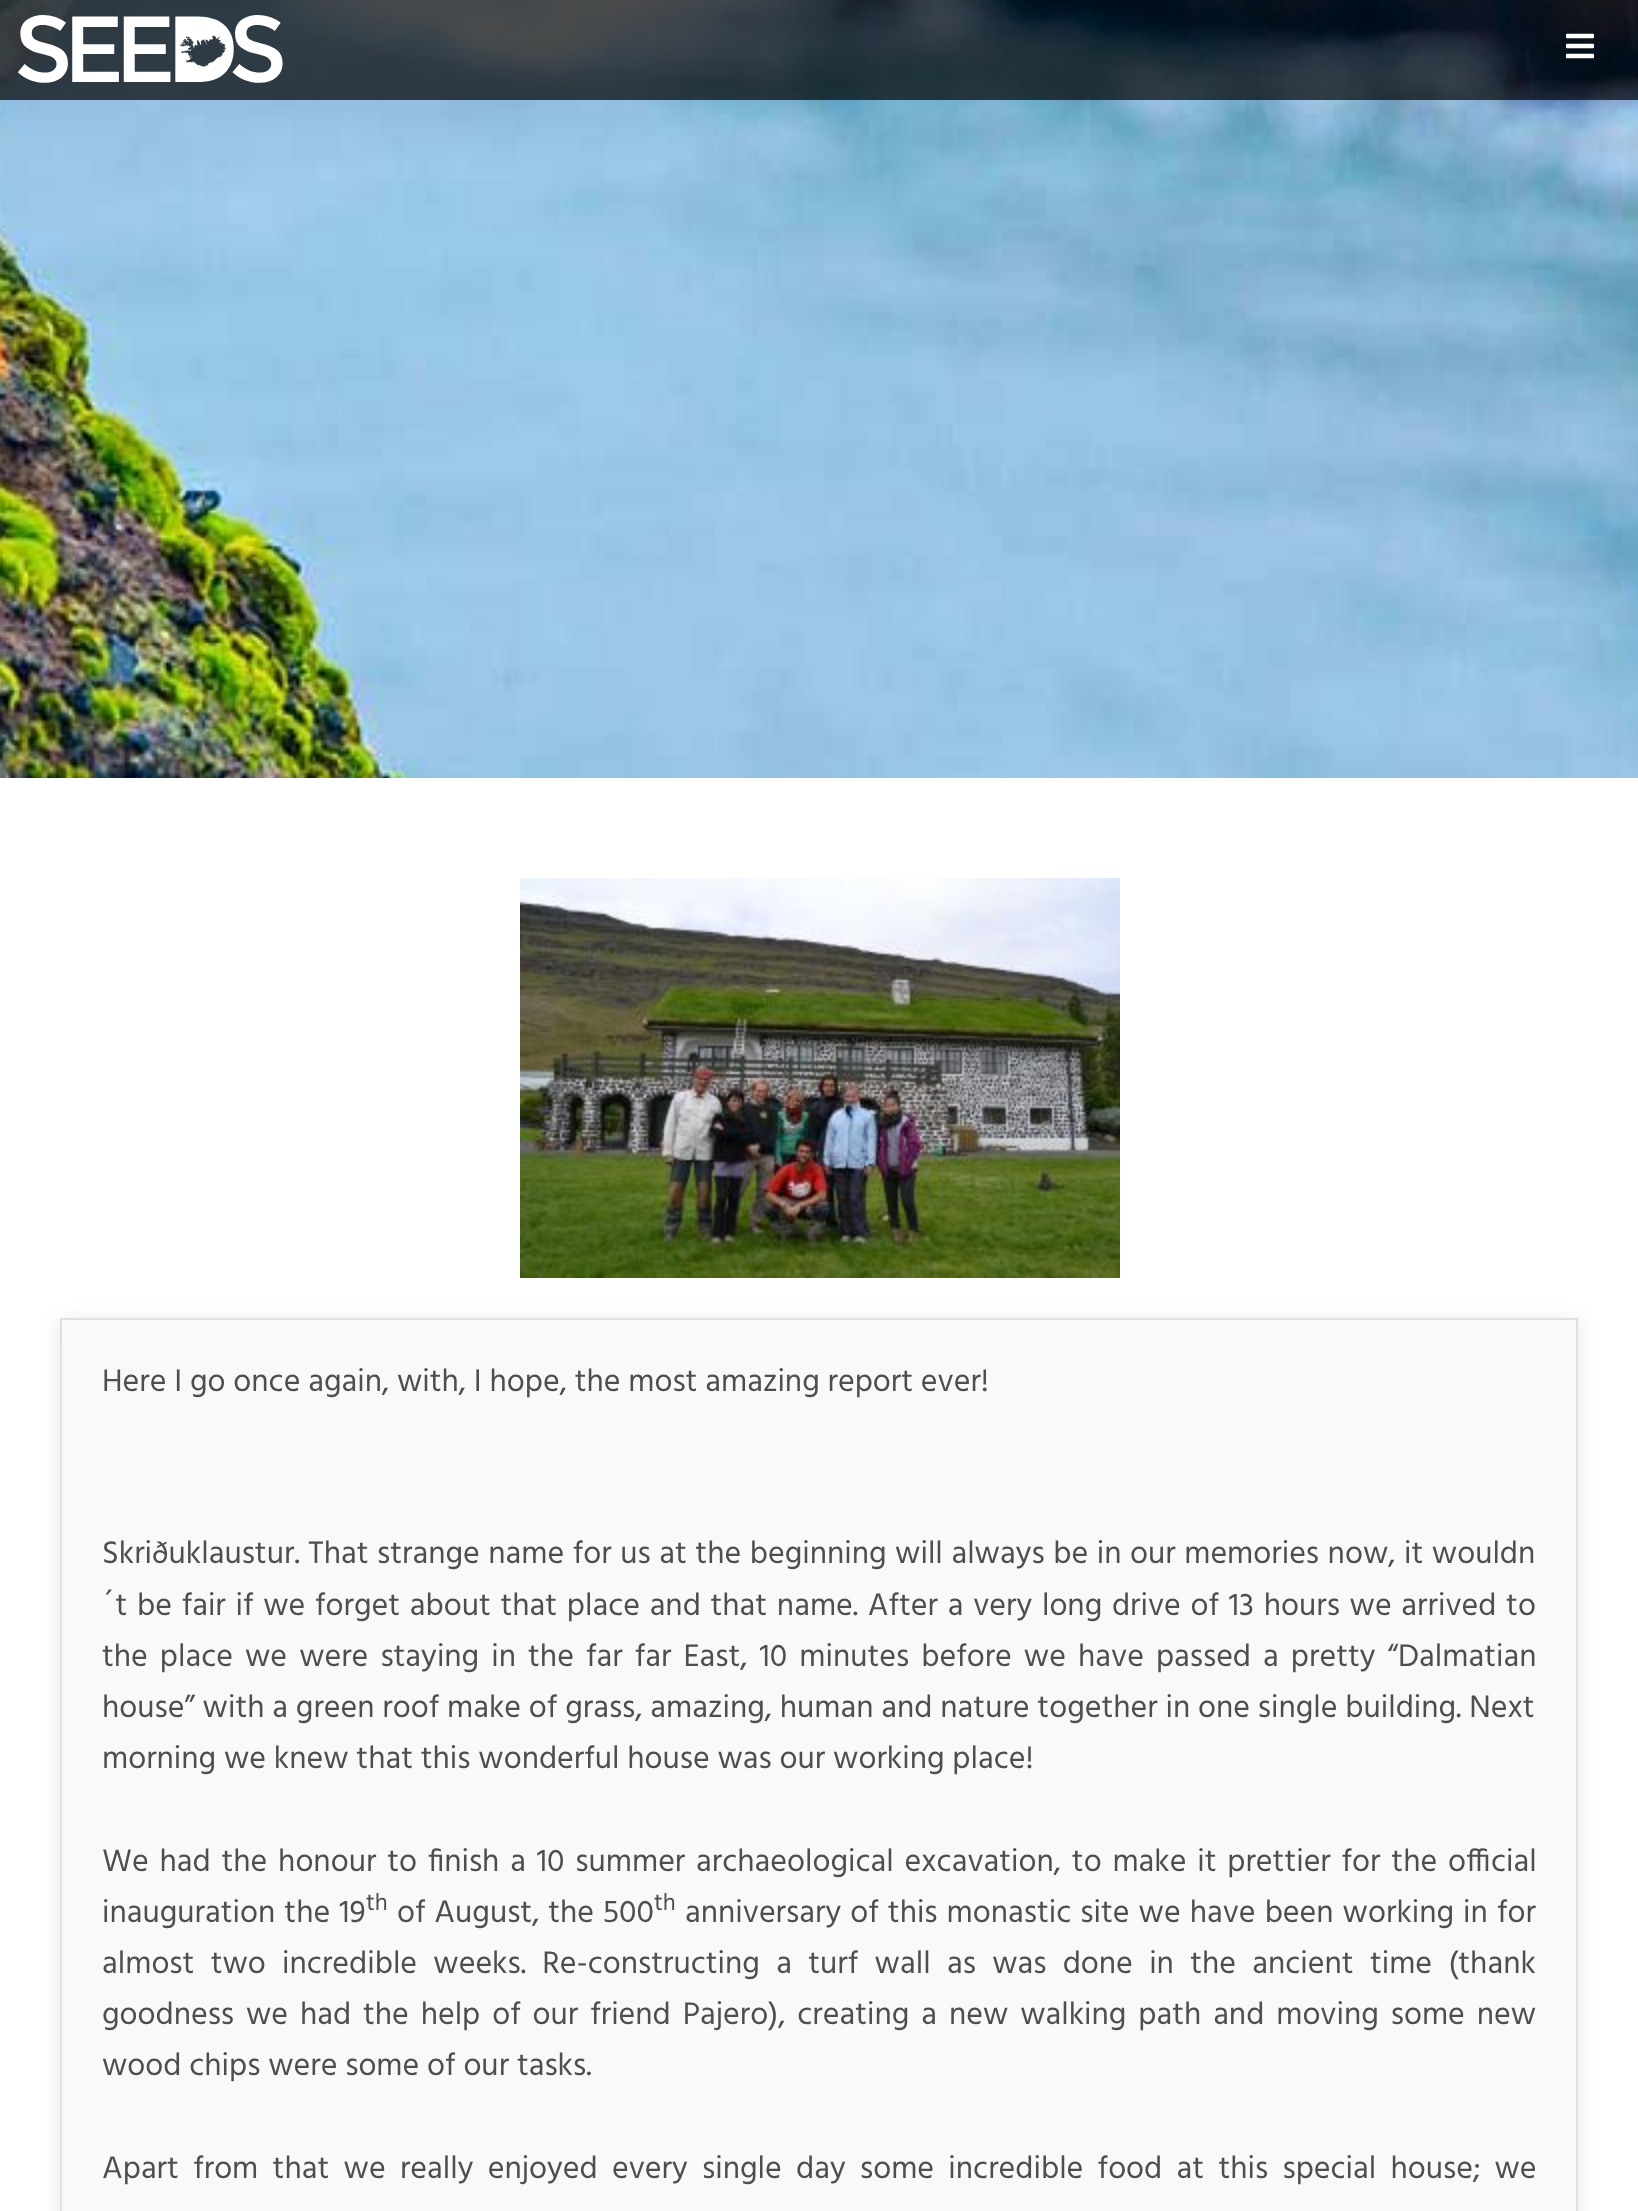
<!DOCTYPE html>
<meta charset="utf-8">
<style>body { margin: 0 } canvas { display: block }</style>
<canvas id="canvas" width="1638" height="2211"></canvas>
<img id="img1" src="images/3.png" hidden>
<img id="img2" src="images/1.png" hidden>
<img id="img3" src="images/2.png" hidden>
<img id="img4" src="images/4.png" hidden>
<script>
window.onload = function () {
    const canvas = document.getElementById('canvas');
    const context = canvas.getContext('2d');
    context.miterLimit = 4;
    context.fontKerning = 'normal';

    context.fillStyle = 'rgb(255, 255, 255)';
    context.fillRect(0, 0, 1638, 2211);
    context.drawImage(document.getElementById('img1'), 0, 0, 1638, 778);
    context.fillStyle = 'rgba(0, 0, 0, 0.7)';
    context.fillRect(0, 0, 1638, 100);
    context.drawImage(document.getElementById('img2'), 17, 15, 266, 68);
    context.drawImage(document.getElementById('img3'), 1566, 33, 28, 26);
    context.drawImage(document.getElementById('img4'), 520, 878, 600, 400);
    context.fillStyle = 'rgba(0, 0, 0, 0.1)';
    context.filter = 'blur(10px)';
    context.beginPath();
    context.rect(60, 1322, 1518, 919);
    context.fill();
    context.filter = 'none';
    context.fillStyle = 'rgb(249, 249, 249)';
    context.beginPath();
    context.rect(61, 1319, 1516, 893);
    context.fill();
    context.strokeStyle = 'rgb(224, 224, 224)';
    context.lineWidth = 2;
    context.stroke();
    context.font = '32px Hind';
    context.fillStyle = 'rgb(77, 78, 79)';
    context.fillText('Here I go once again, with, I hope, the most amazing report ever!', 102, 1391);
    context.wordSpacing = '0.75px';
    context.fillText('Skriðuklaustur. That', 102, 1563);
    context.fillText('strange name for us at the beginning will always be in our memories now, it wouldn', 377, 1563);
    context.wordSpacing = '1.9px';
    context.fillText('´t be fair if we forget about that place and that name. After a very long drive of 13 hours we arrived to', 102, 1615);
    context.wordSpacing = '4.25px';
    context.fillText('the place we were staying in the far far East, 10 minutes before we have passed a pretty “Dalmatian', 102, 1666);
    context.wordSpacing = '0px';
    context.fillText('house” with a green roof make of grass, amazing, human and nature together in one single building. Next', 102, 1717);
    context.fillText('morning we knew that this wonderful house was our working place!', 102, 1768);
    context.wordSpacing = '3px';
    context.fillText('We had the honour to finish a 10 summer archaeological excavation, to make it prettier for the official', 102, 1871);
    context.wordSpacing = '1.25px';
    context.fillText('inauguration the 19', 102, 1922);
    context.wordSpacing = '0px';
    context.font = '24px Hind';
    context.fillText('th', 366, 1910);
    context.wordSpacing = '1px';
    context.font = '32px Hind';
    context.fillText('of August, the 500', 397, 1922);
    context.wordSpacing = '0px';
    context.font = '24px Hind';
    context.fillText('th', 654, 1910);
    context.wordSpacing = '1.25px';
    context.font = '32px Hind';
    context.fillText('anniversary of this monastic site we have been working in for', 685, 1922);
    context.wordSpacing = '8.5px';
    context.fillText('almost two incredible weeks. Re-constructing a turf wall as was done in the ancient time (thank', 102, 1973);
    context.wordSpacing = '4.1px';
    context.fillText('goodness we had the help of our friend Pajero), creating a new walking path and moving some new', 102, 2024);
    context.wordSpacing = '0px';
    context.fillText('wood chips were some of our tasks.', 102, 2075);
    context.wordSpacing = '6.5px';
    context.fillText('Apart from that we really enjoyed every single day some incredible food at this special house; we', 102, 2178);
};
</script>
